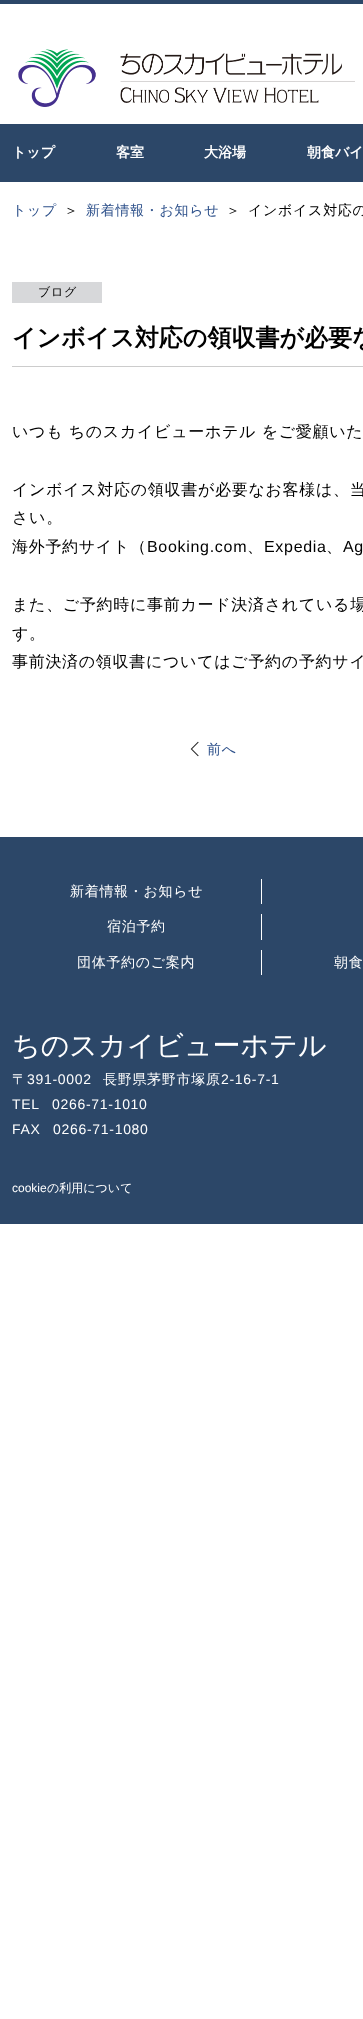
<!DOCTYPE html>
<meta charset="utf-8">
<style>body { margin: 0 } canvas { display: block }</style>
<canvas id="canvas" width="363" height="2019"></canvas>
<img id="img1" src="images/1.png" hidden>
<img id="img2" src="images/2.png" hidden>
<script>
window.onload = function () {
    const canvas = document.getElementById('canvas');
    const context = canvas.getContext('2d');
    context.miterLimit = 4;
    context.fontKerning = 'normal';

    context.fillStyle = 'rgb(255, 255, 255)';
    context.fillRect(0, 0, 363, 2019);
    context.fillStyle = 'rgb(44, 71, 104)';
    context.fillRect(0, 0, 363, 4);
    context.drawImage(document.getElementById('img1'), 18, 49, 337, 58);
    context.fillRect(0, 124, 363, 58);
    context.fillStyle = 'rgb(215, 216, 218)';
    context.fillRect(12, 282, 90, 21);
    context.fillStyle = 'rgb(204, 204, 204)';
    context.fillRect(12, 366, 351, 1);
    context.drawImage(document.getElementById('img2'), 190, 741, 9, 16);
    context.fillStyle = 'rgb(44, 71, 104)';
    context.fillRect(0, 837, 363, 387);
    context.fillStyle = 'rgb(255, 255, 255)';
    context.fillRect(261, 879, 1, 25);
    context.fillRect(261, 914, 1, 26);
    context.fillRect(261, 950, 1, 25);
    context.font = 'bold 14px WenQuanYi Zen Hei';
    context.fillText('トップ', 12, 157);
    context.fillText('客室', 116, 157);
    context.fillText('大浴場', 204, 157);
    context.fillText('朝食バイ', 307, 157);
    context.letterSpacing = '0.7px';
    context.font = '500 14px WenQuanYi Zen Hei';
    context.fillStyle = 'rgb(46, 81, 139)';
    context.fillText('トップ', 12, 215);
    context.fillStyle = 'rgb(0, 0, 0)';
    context.fillText('＞', 64, 215);
    context.fillStyle = 'rgb(46, 81, 139)';
    context.fillText('新着情報・お知らせ', 86, 215);
    context.fillStyle = 'rgb(0, 0, 0)';
    context.fillText('＞', 226, 215);
    context.fillText('インボイス対応の', 248, 215);
    context.font = '500 12px WenQuanYi Zen Hei';
    context.fillText('ブログ', 38, 296);
    context.letterSpacing = '0px';
    context.font = 'bold 24px WenQuanYi Zen Hei';
    context.fillText('インボイス対応の領収書が必要な', 12, 346);
    context.letterSpacing = '0.7px';
    context.font = '500 16px WenQuanYi Zen Hei';
    context.fillText('いつも ちのスカイビューホテル をご愛顧いた', 12, 437);
    context.fillText('インボイス対応の領収書が必要なお客様は、当', 12, 495);
    context.fillText('さい。', 12, 523);
    context.fillText('海外予約サイト（', 12, 552);
    context.font = '16px Liberation Sans';
    context.fillText('Booking.com', 147, 552);
    context.font = '500 16px WenQuanYi Zen Hei';
    context.fillText('、', 247, 552);
    context.font = '16px Liberation Sans';
    context.fillText('Expedia', 264, 552);
    context.font = '500 16px WenQuanYi Zen Hei';
    context.fillText('、', 326, 552);
    context.font = '16px Liberation Sans';
    context.fillText('Ag', 343, 552);
    context.font = '500 16px WenQuanYi Zen Hei';
    context.fillText('また、ご予約時に事前カード決済されている場', 12, 610);
    context.fillText('す。', 12, 639);
    context.fillText('事前決済の領収書についてはご予約の予約サイ', 12, 667);
    context.font = '500 14px WenQuanYi Zen Hei';
    context.fillStyle = 'rgb(46, 81, 139)';
    context.fillText('前へ', 207, 754);
    context.fillStyle = 'rgb(255, 255, 255)';
    context.fillText('新着情報・お知らせ', 70, 896);
    context.fillText('宿泊予約', 107, 931);
    context.fillText('団体予約のご案内', 77, 967);
    context.fillText('朝食', 334, 967);
    context.letterSpacing = '0px';
    context.font = '500 28px WenQuanYi Zen Hei';
    context.fillText('ちのスカイビューホテル', 12, 1055);
    context.letterSpacing = '0.7px';
    context.font = '500 14px WenQuanYi Zen Hei';
    context.fillText('〒', 12, 1084);
    context.font = '14px Liberation Sans';
    context.fillText('391-0002', 27, 1084);
    context.font = '500 14px WenQuanYi Zen Hei';
    context.fillText('長野県茅野市塚原', 103, 1084);
    context.font = '14px Liberation Sans';
    context.fillText('2-16-7-1', 221, 1084);
    context.fillText('TEL', 12, 1109);
    context.fillText('0266-71-1010', 52, 1109);
    context.fillText('FAX', 12, 1134);
    context.fillText('0266-71-1080', 53, 1134);
    context.letterSpacing = '0px';
    context.font = '12px Liberation Sans';
    context.fillText('cookie', 12, 1192);
    context.font = '500 12px WenQuanYi Zen Hei';
    context.fillText('の利用について', 47, 1192);
};
</script>
